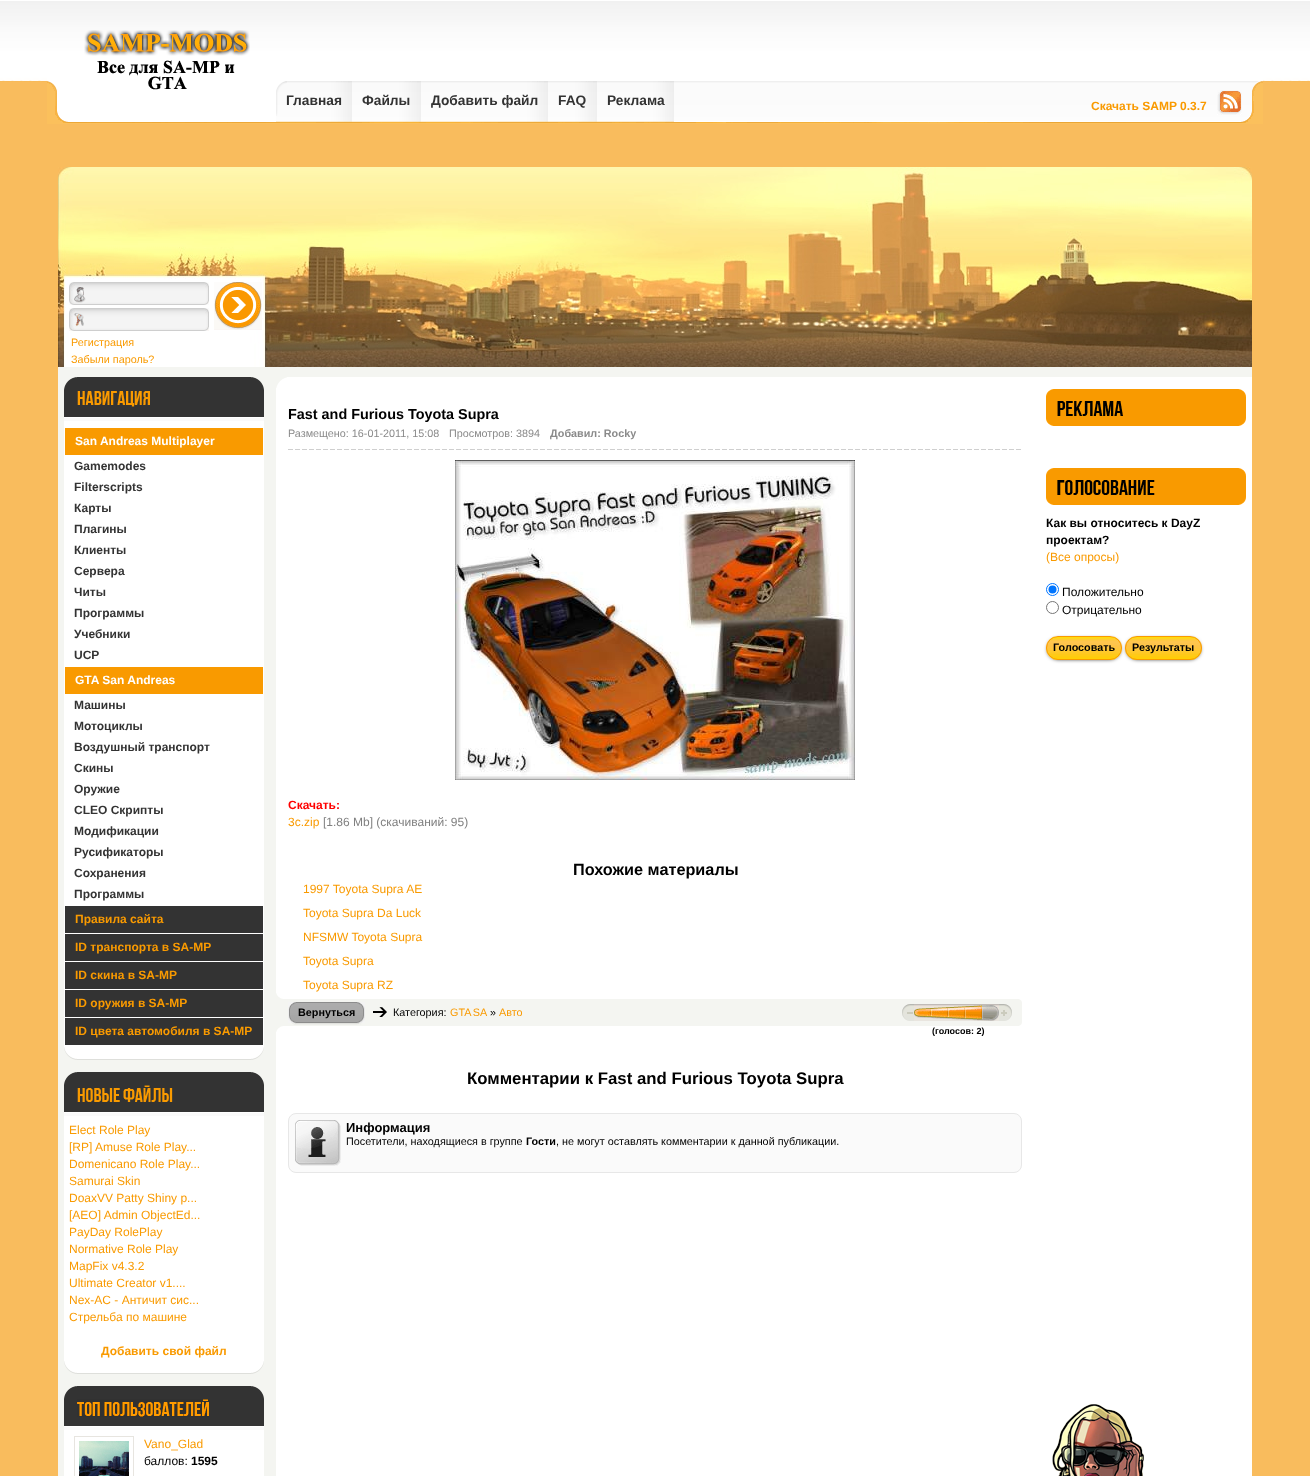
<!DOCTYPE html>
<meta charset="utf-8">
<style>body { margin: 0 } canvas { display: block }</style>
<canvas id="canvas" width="1310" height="1476"></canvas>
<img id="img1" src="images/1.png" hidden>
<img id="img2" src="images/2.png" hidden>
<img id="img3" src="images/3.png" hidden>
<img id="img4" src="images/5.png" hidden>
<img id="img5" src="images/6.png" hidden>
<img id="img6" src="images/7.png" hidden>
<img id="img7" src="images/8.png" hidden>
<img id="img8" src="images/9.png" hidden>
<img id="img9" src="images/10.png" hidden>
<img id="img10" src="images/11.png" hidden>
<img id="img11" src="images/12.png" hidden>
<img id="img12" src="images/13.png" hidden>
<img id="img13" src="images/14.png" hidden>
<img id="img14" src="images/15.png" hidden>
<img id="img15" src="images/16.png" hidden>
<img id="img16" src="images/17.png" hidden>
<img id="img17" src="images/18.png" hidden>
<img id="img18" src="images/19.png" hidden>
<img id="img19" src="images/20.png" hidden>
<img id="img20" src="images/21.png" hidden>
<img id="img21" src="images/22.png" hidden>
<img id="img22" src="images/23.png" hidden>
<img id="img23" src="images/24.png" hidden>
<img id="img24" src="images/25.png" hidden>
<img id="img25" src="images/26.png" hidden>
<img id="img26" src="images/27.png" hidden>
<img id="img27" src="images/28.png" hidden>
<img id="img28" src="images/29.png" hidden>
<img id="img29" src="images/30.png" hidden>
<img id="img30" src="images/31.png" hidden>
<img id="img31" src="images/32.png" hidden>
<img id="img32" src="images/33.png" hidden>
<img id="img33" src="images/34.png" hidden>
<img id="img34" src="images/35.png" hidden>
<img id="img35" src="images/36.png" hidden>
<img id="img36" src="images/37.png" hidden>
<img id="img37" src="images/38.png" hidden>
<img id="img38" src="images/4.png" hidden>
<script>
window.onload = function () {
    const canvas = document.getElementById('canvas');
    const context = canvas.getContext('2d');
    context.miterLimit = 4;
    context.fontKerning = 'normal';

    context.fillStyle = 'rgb(249, 188, 93)';
    context.fillRect(0, 0, 1310, 1476);
    context.drawImage(document.getElementById('img1'), 0, 0, 1310, 82);
    context.drawImage(document.getElementById('img2'), 47, 1, 1216, 123);
    context.drawImage(document.getElementById('img3'), 84, 30, 166, 60);
    context.drawImage(document.getElementById('img4'), 276, 81, 76, 41);
    context.drawImage(document.getElementById('img5'), 352, 81, 69, 41);
    context.drawImage(document.getElementById('img6'), 421, 81, 127, 41);
    context.drawImage(document.getElementById('img7'), 548, 81, 49, 41);
    context.drawImage(document.getElementById('img8'), 597, 81, 77, 41);
    context.drawImage(document.getElementById('img9'), 1217, 90, 25, 25);
    context.fillStyle = 'rgb(244, 245, 241)';
    context.fillRect(58, 367, 1194, 10);
    context.drawImage(document.getElementById('img10'), 58, 167, 1194, 200);
    context.drawImage(document.getElementById('img11'), 69, 282, 140, 23);
    context.drawImage(document.getElementById('img12'), 69, 308, 140, 23);
    context.drawImage(document.getElementById('img13'), 214, 282, 48, 48);
    context.fillRect(58, 377, 218, 1099);
    context.fillStyle = 'rgb(255, 255, 255)';
    context.fillRect(276, 377, 976, 1099);
    context.drawImage(document.getElementById('img14'), 276, 377, 11, 11);
    context.fillRect(64, 417, 200, 630);
    context.fillStyle = 'rgb(250, 250, 250)';
    context.fillRect(64, 418, 200, 3);
    context.fillStyle = 'rgb(51, 51, 51)';
    context.fillRect(64, 390, 200, 27);
    context.drawImage(document.getElementById('img15'), 64, 377, 200, 13);
    context.drawImage(document.getElementById('img16'), 77, 391, 73, 16);
    context.drawImage(document.getElementById('img17'), 64, 1047, 200, 13);
    context.fillStyle = 'rgb(249, 154, 0)';
    context.fillRect(65, 428, 198, 27);
    context.fillRect(65, 667, 198, 27);
    context.fillStyle = 'rgb(51, 51, 51)';
    context.fillRect(65, 906, 198, 27);
    context.fillRect(65, 934, 198, 27);
    context.fillRect(65, 962, 198, 27);
    context.fillRect(65, 990, 198, 27);
    context.fillRect(65, 1018, 198, 27);
    context.fillStyle = 'rgb(255, 255, 255)';
    context.fillRect(64, 1112, 200, 249);
    context.fillStyle = 'rgb(250, 250, 250)';
    context.fillRect(64, 1113, 200, 3);
    context.fillStyle = 'rgb(51, 51, 51)';
    context.fillRect(64, 1085, 200, 27);
    context.drawImage(document.getElementById('img15'), 64, 1072, 200, 13);
    context.drawImage(document.getElementById('img18'), 77, 1085, 96, 17);
    context.drawImage(document.getElementById('img17'), 64, 1361, 200, 13);
    context.fillStyle = 'rgb(255, 255, 255)';
    context.fillRect(64, 1426, 200, 50);
    context.fillStyle = 'rgb(250, 250, 250)';
    context.fillRect(64, 1427, 200, 3);
    context.fillStyle = 'rgb(51, 51, 51)';
    context.fillRect(64, 1399, 200, 27);
    context.drawImage(document.getElementById('img15'), 64, 1386, 200, 13);
    context.drawImage(document.getElementById('img19'), 77, 1399, 132, 18);
    context.strokeStyle = 'rgb(231, 229, 224)';
    context.strokeRect(74.5, 1436.5, 59, 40);
    context.drawImage(document.getElementById('img20'), 79, 1441, 50, 35);
    context.drawImage(document.getElementById('img21'), 288, 449, 733, 1);
    context.drawImage(document.getElementById('img22'), 455, 460, 400, 320);
    context.fillStyle = 'rgb(244, 245, 241)';
    context.fillRect(365, 999, 657, 27);
    context.drawImage(document.getElementById('img23'), 1019, 999, 3, 27);
    context.drawImage(document.getElementById('img24'), 276, 993, 12, 39);
    context.drawImage(document.getElementById('img25'), 288, 999, 77, 27);
    context.drawImage(document.getElementById('img26'), 357, 1002, 8, 23);
    context.drawImage(document.getElementById('img27'), 373, 1007, 14, 10);
    context.drawImage(document.getElementById('img28'), 902, 1004, 110, 17);
    context.drawImage(document.getElementById('img29'), 914, 1004, 85, 17);
    context.drawImage(document.getElementById('img30'), 914, 1005, 68, 15);
    context.fillStyle = 'rgb(250, 250, 250)';
    context.beginPath();
    context.roundRect(288.5, 1113.5, 733, 59, 7.5);
    context.fill();
    context.strokeStyle = 'rgb(231, 231, 231)';
    context.stroke();
    context.drawImage(document.getElementById('img31'), 295, 1120, 46, 46);
    context.drawImage(document.getElementById('img32'), 1046, 389, 200, 37);
    context.drawImage(document.getElementById('img33'), 1057, 401, 66, 15);
    context.drawImage(document.getElementById('img32'), 1046, 468, 200, 37);
    context.drawImage(document.getElementById('img34'), 1057, 480, 98, 15);
    context.beginPath();
    context.arc(1052.5, 589.5, 6, 0, 2 * Math.PI);
    context.strokeStyle = 'rgb(0, 117, 255)';
    context.stroke();
    context.fillStyle = 'rgb(0, 117, 255)';
    context.beginPath();
    context.arc(1052.5, 589.5, 4, 0, 2 * Math.PI);
    context.fill();
    context.beginPath();
    context.arc(1052.5, 607.5, 6, 0, 2 * Math.PI);
    context.strokeStyle = 'rgb(118, 118, 118)';
    context.stroke();
    context.save();
    context.beginPath();
    context.moveTo(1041, 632);
    context.lineTo(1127, 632);
    context.lineTo(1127, 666);
    context.lineTo(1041, 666);
    context.closePath();
    context.moveTo(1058, 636);
    context.lineTo(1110, 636);
    context.bezierCurveTo(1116.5, 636, 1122, 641.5, 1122, 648);
    context.bezierCurveTo(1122, 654.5, 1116.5, 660, 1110, 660);
    context.lineTo(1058, 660);
    context.bezierCurveTo(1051.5, 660, 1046, 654.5, 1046, 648);
    context.bezierCurveTo(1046, 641.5, 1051.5, 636, 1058, 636);
    context.closePath();
    context.clip('evenodd');
    context.fillStyle = 'rgb(0, 0, 0)';
    context.filter = 'blur(2px)';
    context.beginPath();
    context.roundRect(1048, 639, 72, 20, 10);
    context.fill();
    context.filter = 'none';
    context.restore();
    context.drawImage(document.getElementById('img35'), 1046, 637, 76, 23);
    context.beginPath();
    context.roundRect(1046.5, 636.5, 75, 23, 11.5);
    context.strokeStyle = 'rgb(249, 154, 0)';
    context.stroke();
    context.fillStyle = 'rgb(0, 0, 0)';
    context.filter = 'blur(2px)';
    context.beginPath();
    context.roundRect(1127, 639, 73, 20, 10);
    context.fill();
    context.filter = 'none';
    context.drawImage(document.getElementById('img36'), 1125, 637, 77, 23);
    context.beginPath();
    context.roundRect(1125.5, 636.5, 76, 23, 11.5);
    context.stroke();
    context.drawImage(document.getElementById('img37'), 1052, 1404, 92, 72);
    context.font = 'bold 13.75px Liberation Sans';
    context.fillStyle = 'rgb(51, 51, 51)';
    context.fillText('Главная', 286, 105);
    context.drawImage(document.getElementById('img38'), 276, 81, 11, 35);
    context.fillText('Файлы', 362, 105);
    context.fillText('Добавить файл', 431, 105);
    context.fillText('FAQ', 558, 105);
    context.fillText('Реклама', 607, 105);
    context.font = 'bold 12px Liberation Sans';
    context.fillStyle = 'rgb(249, 154, 0)';
    context.fillText('Скачать SAMP 0.3.7', 1091, 110);
    context.font = '10.8px Liberation Sans';
    context.fillText('Регистрация', 71, 346);
    context.fillText('Забыли пароль?', 71, 363);
    context.font = 'bold 12px Liberation Sans';
    context.fillStyle = 'rgb(255, 255, 255)';
    context.fillText('San Andreas Multiplayer', 75, 445);
    context.fillStyle = 'rgb(51, 51, 51)';
    context.fillText('Gamemodes', 74, 470);
    context.fillText('Filterscripts', 74, 491);
    context.fillText('Карты', 74, 512);
    context.fillText('Плагины', 74, 533);
    context.fillText('Клиенты', 74, 554);
    context.fillText('Сервера', 74, 575);
    context.fillText('Читы', 74, 596);
    context.fillText('Программы', 74, 617);
    context.fillText('Учебники', 74, 638);
    context.fillText('UCP', 74, 659);
    context.fillStyle = 'rgb(255, 255, 255)';
    context.fillText('GTA San Andreas', 75, 684);
    context.fillStyle = 'rgb(51, 51, 51)';
    context.fillText('Машины', 74, 709);
    context.fillText('Мотоциклы', 74, 730);
    context.fillText('Воздушный транспорт', 74, 751);
    context.fillText('Скины', 74, 772);
    context.fillText('Оружие', 74, 793);
    context.fillText('CLEO Скрипты', 74, 814);
    context.fillText('Модификации', 74, 835);
    context.fillText('Русификаторы', 74, 856);
    context.fillText('Сохранения', 74, 877);
    context.fillText('Программы', 74, 898);
    context.fillStyle = 'rgb(249, 154, 0)';
    context.fillText('Правила сайта', 75, 923);
    context.fillText('ID транспорта в SA-MP', 75, 951);
    context.fillText('ID скина в SA-MP', 75, 979);
    context.fillText('ID оружия в SA-MP', 75, 1007);
    context.fillText('ID цвета автомобиля в SA-MP', 75, 1035);
    context.font = '12px Liberation Sans';
    context.fillText('Elect Role Play', 69, 1134);
    context.fillText('[RP] Amuse Role Play...', 69, 1151);
    context.fillText('Domenicano Role Play...', 69, 1168);
    context.fillText('Samurai Skin', 69, 1185);
    context.fillText('DoaxVV Patty Shiny p...', 69, 1202);
    context.fillText('[AEO] Admin ObjectEd...', 69, 1219);
    context.fillText('PayDay RolePlay', 69, 1236);
    context.fillText('Normative Role Play', 69, 1253);
    context.fillText('MapFix v4.3.2', 69, 1270);
    context.fillText('Ultimate Creator v1....', 69, 1287);
    context.fillText('Nex-AC - Античит сис...', 69, 1304);
    context.fillText('Стрельба по машине', 69, 1321);
    context.font = 'bold 12px Liberation Sans';
    context.fillText('Добавить свой файл', 101, 1355);
    context.font = '12px Liberation Sans';
    context.fillText('Vano_Glad', 144, 1448);
    context.fillStyle = 'rgb(0, 0, 0)';
    context.fillText('баллов:', 144, 1465);
    context.font = 'bold 12px Liberation Sans';
    context.fillText('1595', 191, 1465);
    context.font = 'bold 14.4px Liberation Sans';
    context.fillText('Fast and Furious Toyota Supra', 288, 419);
    context.font = '10.8px Liberation Sans';
    context.fillStyle = 'rgb(138, 138, 138)';
    context.fillText('Размещено: 16-01-2011, 15:08', 288, 437);
    context.fillText('Просмотров: 3894', 449, 437);
    context.font = 'bold 10.8px Liberation Sans';
    context.fillText('Добавил: Rocky', 550, 437);
    context.font = 'bold 12px Liberation Sans';
    context.fillStyle = 'rgb(255, 0, 0)';
    context.fillText('Скачать:', 288, 809);
    context.font = '12px Liberation Sans';
    context.fillStyle = 'rgb(249, 154, 0)';
    context.fillText('3c.zip', 288, 826);
    context.fillStyle = 'rgb(128, 128, 128)';
    context.fillText('[1.86 Mb] (cкачиваний: 95)', 323, 826);
    context.font = 'bold 16.25px Liberation Sans';
    context.fillStyle = 'rgb(0, 0, 0)';
    context.fillText('Похожие материалы', 573, 875);
    context.font = '12px Liberation Sans';
    context.fillStyle = 'rgb(249, 154, 0)';
    context.fillText('1997 Toyota Supra AE', 303, 893);
    context.fillText('Toyota Supra Da Luck', 303, 917);
    context.fillText('NFSMW Toyota Supra', 303, 941);
    context.fillText('Toyota Supra', 303, 965);
    context.fillText('Toyota Supra RZ', 303, 989);
    context.font = 'bold 10.8px Liberation Sans';
    context.fillStyle = 'rgb(0, 0, 0)';
    context.fillText('Вернуться', 298, 1016);
    context.font = '10.8px Liberation Sans';
    context.fillText('Категория:', 393, 1016);
    context.wordSpacing = '-1px';
    context.fillStyle = 'rgb(249, 154, 0)';
    context.fillText('GTA SA', 450, 1016);
    context.wordSpacing = '0px';
    context.fillStyle = 'rgb(0, 0, 0)';
    context.fillText('»', 490, 1016);
    context.fillStyle = 'rgb(249, 154, 0)';
    context.fillText('Авто', 499, 1016);
    context.font = 'bold 9px Liberation Sans';
    context.fillStyle = 'rgb(0, 0, 0)';
    context.fillText('(голосов: 2)', 932, 1034);
    context.font = 'bold 16.8px Liberation Sans';
    context.fillText('Комментарии к Fast and Furious Toyota Supra', 467, 1084);
    context.font = 'bold 13px Liberation Sans';
    context.fillText('Информация', 346, 1132);
    context.font = '10.8px Liberation Sans';
    context.fillText('Посетители, находящиеся в группе', 346, 1145);
    context.font = 'bold 10.8px Liberation Sans';
    context.fillText('Гости', 526, 1145);
    context.font = '10.8px Liberation Sans';
    context.fillText(', не могут оставлять комментарии к данной публикации.', 556, 1145);
    context.font = 'bold 12px Liberation Sans';
    context.fillText('Как вы относитесь к DayZ', 1046, 527);
    context.fillText('проектам?', 1046, 544);
    context.font = '12px Liberation Sans';
    context.fillStyle = 'rgb(249, 154, 0)';
    context.fillText('(Все опросы)', 1046, 561);
    context.fillStyle = 'rgb(0, 0, 0)';
    context.fillText('Положительно', 1062, 596);
    context.fillText('Отрицательно', 1062, 614);
    context.font = 'bold 10.8px Liberation Sans';
    context.fillText('Голосовать', 1053, 651);
    context.fillText('Результаты', 1132, 651);
};
</script>
